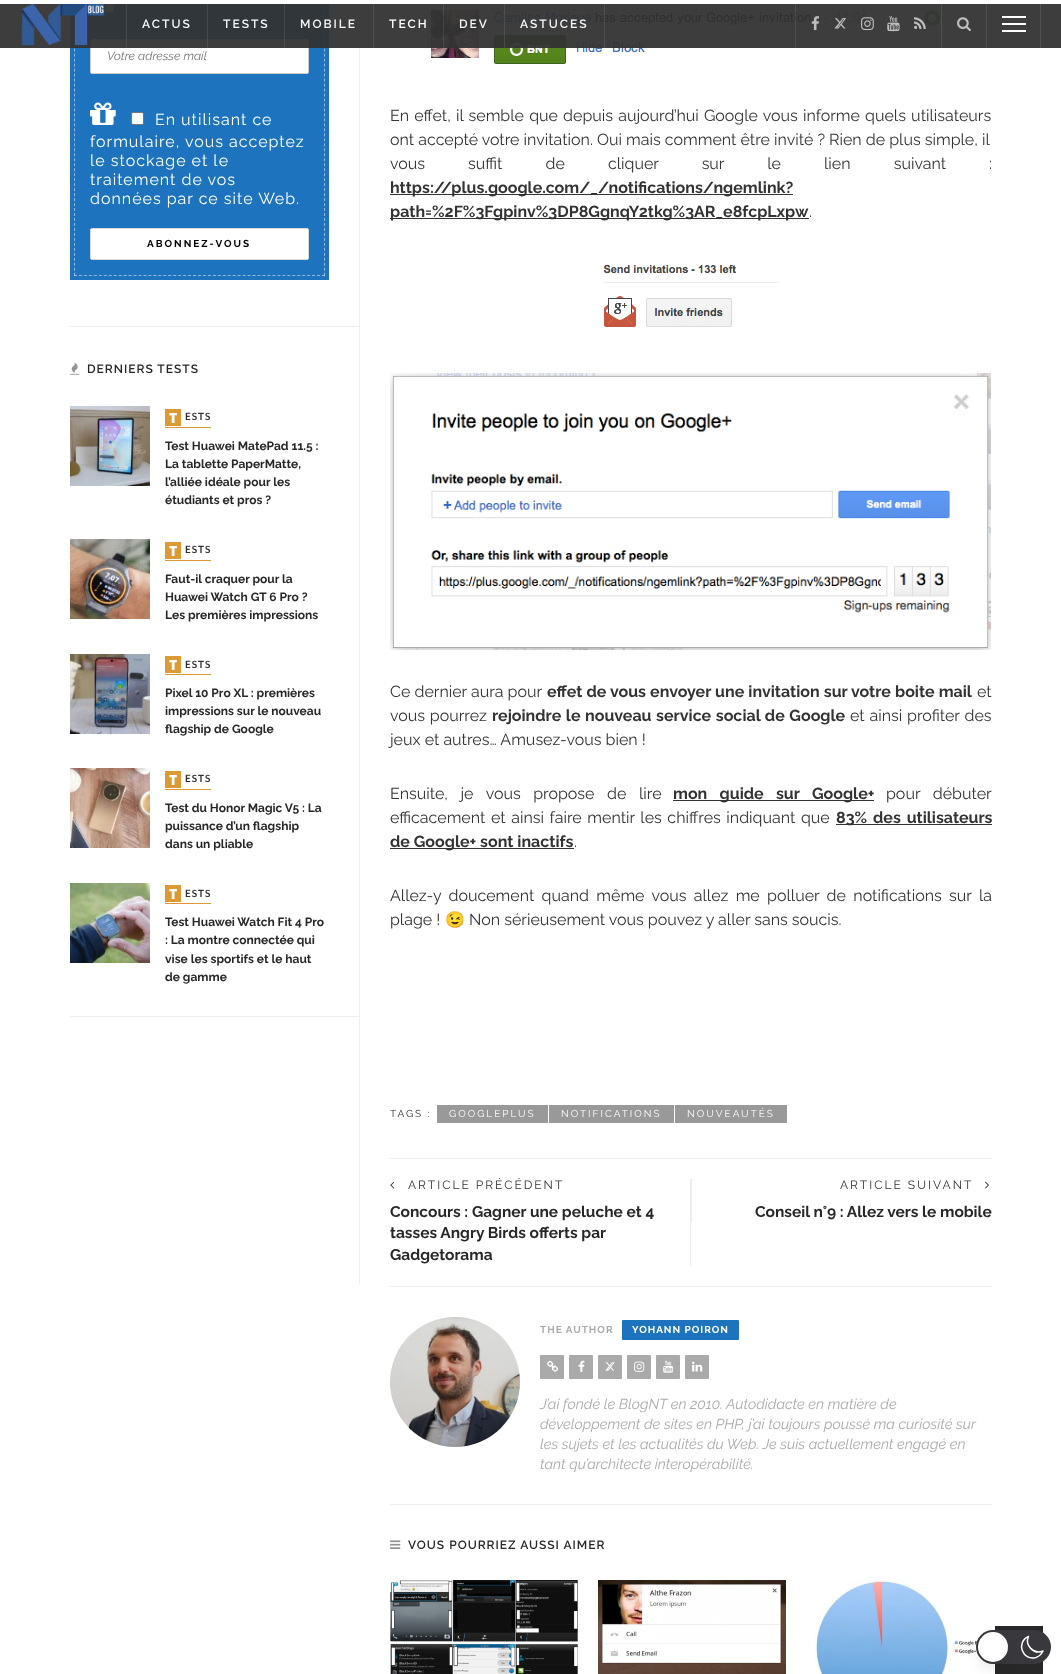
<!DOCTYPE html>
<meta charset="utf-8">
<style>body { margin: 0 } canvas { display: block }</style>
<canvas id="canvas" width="1061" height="1674"></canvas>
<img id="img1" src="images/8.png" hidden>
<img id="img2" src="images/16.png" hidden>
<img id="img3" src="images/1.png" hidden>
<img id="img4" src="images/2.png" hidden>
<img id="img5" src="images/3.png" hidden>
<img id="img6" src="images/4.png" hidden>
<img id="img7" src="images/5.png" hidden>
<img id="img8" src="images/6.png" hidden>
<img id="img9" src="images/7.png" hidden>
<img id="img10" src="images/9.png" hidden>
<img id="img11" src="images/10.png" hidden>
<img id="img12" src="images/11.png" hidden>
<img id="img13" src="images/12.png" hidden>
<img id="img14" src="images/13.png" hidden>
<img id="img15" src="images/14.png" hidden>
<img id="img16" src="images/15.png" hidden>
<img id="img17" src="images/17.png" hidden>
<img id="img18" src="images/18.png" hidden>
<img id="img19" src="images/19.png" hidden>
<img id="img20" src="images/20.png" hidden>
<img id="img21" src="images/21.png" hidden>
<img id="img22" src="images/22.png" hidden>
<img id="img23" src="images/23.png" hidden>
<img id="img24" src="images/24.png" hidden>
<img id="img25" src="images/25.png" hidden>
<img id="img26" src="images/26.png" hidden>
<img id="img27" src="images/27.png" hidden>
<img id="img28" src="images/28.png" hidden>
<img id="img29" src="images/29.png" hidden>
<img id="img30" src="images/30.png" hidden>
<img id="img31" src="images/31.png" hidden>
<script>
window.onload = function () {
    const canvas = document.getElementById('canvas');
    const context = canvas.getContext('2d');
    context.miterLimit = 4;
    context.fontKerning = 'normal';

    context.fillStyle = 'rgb(255, 255, 255)';
    context.fillRect(0, 0, 1061, 1674);
    context.fillStyle = 'rgb(238, 238, 238)';
    context.fillRect(359, 0, 1, 1284);
    context.fillStyle = 'rgb(30, 115, 190)';
    context.fillRect(70, 4, 259, 276);
    context.beginPath();
    context.moveTo(324.5, -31);
    context.lineTo(324.5, 276);
    context.strokeStyle = 'rgb(143, 185, 223)';
    context.setLineDash([3, 1.98]);
    context.stroke();
    context.beginPath();
    context.moveTo(74, 275.5);
    context.lineTo(325, 275.5);
    context.strokeStyle = 'rgba(255, 255, 255, 0.5)';
    context.setLineDash([3, 1.96]);
    context.stroke();
    context.beginPath();
    context.moveTo(74.5, -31);
    context.lineTo(74.5, 276);
    context.setLineDash([3, 1.98]);
    context.stroke();
    context.drawImage(document.getElementById('img1'), 92, 4, 22, 8);
    context.fillStyle = 'rgb(255, 255, 255)';
    context.beginPath();
    context.roundRect(90.5, 39.5, 218, 34, 1.5);
    context.fill();
    context.strokeStyle = 'rgb(204, 204, 204)';
    context.setLineDash([]);
    context.stroke();
    context.drawImage(document.getElementById('img2'), 431, 10, 509, 54);
    context.fillStyle = 'rgba(51, 51, 51, 0.95)';
    context.fillRect(0, 4, 1061, 44);
    context.fillStyle = 'rgb(81, 81, 81)';
    context.fillRect(373, 0, 1, 48);
    context.fillStyle = 'rgba(255, 255, 255, 0.1)';
    context.fillRect(443, 0, 1, 48);
    context.fillRect(504, 0, 1, 48);
    context.fillRect(604, 0, 1, 48);
    context.fillStyle = 'rgb(81, 81, 81)';
    context.fillRect(1040, 0, 1, 48);
    context.fillStyle = 'rgba(255, 255, 255, 0.1)';
    context.fillRect(795, 0, 1, 48);
    context.fillStyle = 'rgb(81, 81, 81)';
    context.fillRect(941, 0, 1, 48);
    context.fillRect(986, 0, 1, 48);
    context.fillStyle = 'rgb(255, 255, 255)';
    context.fillRect(324, 0, 717, 4);
    context.drawImage(document.getElementById('img3'), 21, 4, 84, 42);
    context.fillStyle = 'rgba(255, 255, 255, 0.1)';
    context.fillRect(207, 0, 1, 48);
    context.fillRect(126, 0, 1, 48);
    context.fillRect(284, 0, 1, 48);
    context.drawImage(document.getElementById('img4'), 811, 16, 8, 15);
    context.drawImage(document.getElementById('img5'), 834, 18, 13, 11);
    context.drawImage(document.getElementById('img6'), 861, 17, 13, 14);
    context.drawImage(document.getElementById('img7'), 887, 16, 13, 16);
    context.drawImage(document.getElementById('img8'), 914, 17, 12, 12);
    context.drawImage(document.getElementById('img9'), 957, 17, 14, 15);
    context.fillStyle = 'rgb(255, 255, 255)';
    context.fillRect(1002, 23, 24, 2);
    context.fillRect(1002, 16, 24, 2);
    context.fillRect(1002, 30, 24, 2);
    context.fillStyle = 'rgb(238, 238, 238)';
    context.fillRect(70, 326, 289, 1);
    context.drawImage(document.getElementById('img10'), 90, 102, 26, 23);
    context.fillStyle = 'rgb(255, 255, 255)';
    context.beginPath();
    context.roundRect(131.5, 112.5, 12, 12, 1.5);
    context.fill();
    context.strokeStyle = 'rgb(118, 118, 118)';
    context.stroke();
    context.beginPath();
    context.roundRect(90.5, 228.5, 218, 31, 1.5);
    context.fill();
    context.strokeStyle = 'rgb(217, 217, 217)';
    context.stroke();
    context.fillStyle = 'rgb(238, 238, 238)';
    context.fillRect(70, 1016, 289, 1);
    context.drawImage(document.getElementById('img11'), 70, 362, 10, 13);
    context.drawImage(document.getElementById('img12'), 70, 406, 80, 80);
    context.fillStyle = 'rgb(221, 153, 51)';
    context.fillRect(165, 409, 16, 17);
    context.fillRect(165, 427, 46, 1);
    context.drawImage(document.getElementById('img13'), 70, 539, 80, 80);
    context.fillRect(165, 542, 16, 17);
    context.fillRect(165, 560, 46, 1);
    context.drawImage(document.getElementById('img14'), 70, 654, 80, 80);
    context.fillRect(165, 656, 16, 17);
    context.fillRect(165, 674, 46, 1);
    context.drawImage(document.getElementById('img15'), 70, 768, 80, 80);
    context.fillRect(165, 771, 16, 17);
    context.fillRect(165, 789, 46, 1);
    context.drawImage(document.getElementById('img16'), 70, 883, 80, 80);
    context.fillRect(165, 885, 16, 17);
    context.fillRect(165, 903, 46, 1);
    context.fillStyle = 'rgb(51, 51, 51)';
    context.fillRect(390, 194, 403, 1);
    context.fillRect(390, 218, 419, 1);
    context.drawImage(document.getElementById('img17'), 603, 264, 176, 63);
    context.drawImage(document.getElementById('img18'), 390, 373, 601, 277);
    context.fillRect(673, 800, 201, 1);
    context.fillRect(836, 824, 156, 1);
    context.fillRect(390, 848, 184, 1);
    context.fillStyle = 'rgb(153, 153, 153)';
    context.fillRect(437, 1105, 111, 18);
    context.fillRect(549, 1105, 125, 18);
    context.fillRect(675, 1105, 112, 18);
    context.fillStyle = 'rgb(238, 238, 238)';
    context.fillRect(390, 1158, 602, 1);
    context.fillRect(690, 1179, 1, 87);
    context.drawImage(document.getElementById('img19'), 390, 1181, 5, 8);
    context.fillRect(691, 1179, 1, 43);
    context.drawImage(document.getElementById('img20'), 985, 1181, 4, 8);
    context.fillRect(390, 1286, 602, 1);
    context.fillRect(390, 1504, 602, 1);
    context.drawImage(document.getElementById('img21'), 390, 1317, 130, 130);
    context.fillStyle = 'rgb(30, 115, 190)';
    context.beginPath();
    context.roundRect(622, 1320, 117, 20, 1);
    context.fill();
    context.fillStyle = 'rgb(170, 170, 170)';
    context.beginPath();
    context.roundRect(540, 1355, 24, 24, 1);
    context.fill();
    context.drawImage(document.getElementById('img22'), 547, 1360, 11, 12);
    context.beginPath();
    context.roundRect(569, 1355, 24, 24, 1);
    context.fill();
    context.drawImage(document.getElementById('img23'), 578, 1360, 7, 12);
    context.beginPath();
    context.roundRect(598, 1355, 24, 24, 1);
    context.fill();
    context.drawImage(document.getElementById('img24'), 605, 1362, 10, 9);
    context.beginPath();
    context.roundRect(627, 1355, 24, 24, 1);
    context.fill();
    context.drawImage(document.getElementById('img25'), 634, 1361, 11, 11);
    context.beginPath();
    context.roundRect(656, 1355, 24, 24, 1);
    context.fill();
    context.drawImage(document.getElementById('img26'), 663, 1360, 11, 13);
    context.beginPath();
    context.roundRect(685, 1355, 24, 24, 1);
    context.fill();
    context.drawImage(document.getElementById('img27'), 692, 1361, 11, 11);
    context.drawImage(document.getElementById('img28'), 390, 1540, 11, 9);
    context.drawImage(document.getElementById('img29'), 390, 1580, 188, 94);
    context.drawImage(document.getElementById('img30'), 598, 1580, 188, 94);
    context.drawImage(document.getElementById('img31'), 814, 1580, 177, 94);
    context.fillStyle = 'rgb(40, 40, 40)';
    context.fillRect(995, 1626, 48, 48);
    context.fillStyle = 'rgb(57, 57, 61)';
    context.beginPath();
    context.roundRect(976, 1630, 75, 34, 17);
    context.fill();
    context.beginPath();
    context.moveTo(1043, 1651);
    context.bezierCurveTo(1034, 1655, 1024.5, 1645.5, 1028.5, 1636.5);
    context.bezierCurveTo(1015.5, 1642, 1022.5, 1661.5, 1036, 1657.5);
    context.bezierCurveTo(1039, 1656.5, 1041.5, 1654, 1043, 1651);
    context.closePath();
    context.strokeStyle = 'rgb(255, 255, 255)';
    context.lineWidth = 1.5;
    context.lineCap = 'round';
    context.lineJoin = 'round';
    context.stroke();
    context.fillStyle = 'rgba(0, 0, 0, 0.1)';
    context.filter = 'blur(7.5px)';
    context.beginPath();
    context.roundRect(981, 1645, 24, 24, 12);
    context.fill();
    context.filter = 'none';
    context.fillStyle = 'rgb(255, 255, 255)';
    context.beginPath();
    context.arc(993, 1647, 15, 0, 2 * Math.PI);
    context.fill();
    context.letterSpacing = '2px';
    context.font = '600 12px Raleway';
    context.fillStyle = 'rgb(244, 248, 252)';
    context.fillText('ACTUS', 142, 28);
    context.fillText('TESTS', 223, 28);
    context.fillStyle = 'rgb(245, 245, 245)';
    context.fillText('MOBILE', 300, 28);
    context.fillStyle = 'rgb(255, 255, 255)';
    context.fillText('TECH', 389, 28);
    context.fillStyle = 'rgb(245, 245, 245)';
    context.fillText('DEV', 459, 28);
    context.fillText('ASTUCES', 520, 28);
    context.letterSpacing = '0px';
    context.font = 'italic 12px Raleway';
    context.fillStyle = 'rgb(117, 117, 117)';
    context.fillText('Votre adresse mail', 107, 60);
    context.letterSpacing = '1px';
    context.font = '16px Raleway';
    context.fillStyle = 'rgb(255, 255, 255)';
    context.fillText('En utilisant ce', 155, 125);
    context.fillText('formulaire, vous acceptez', 90, 147);
    context.fillText('le stockage et le', 90, 166);
    context.fillText('traitement de vos', 90, 185);
    context.fillText('données par ce site Web.', 90, 204);
    context.letterSpacing = '2px';
    context.font = 'bold 10px Raleway';
    context.fillStyle = 'rgb(0, 0, 0)';
    context.fillText('ABONNEZ-VOUS', 147, 247);
    context.letterSpacing = '1px';
    context.font = '600 12px Raleway';
    context.fillStyle = 'rgb(40, 40, 40)';
    context.fillText('DERNIERS TESTS', 87, 373);
    context.letterSpacing = '0px';
    context.font = '900 14px Noto Sans';
    context.fillStyle = 'rgb(255, 255, 255)';
    context.fillText('T', 169, 423);
    context.letterSpacing = '1px';
    context.font = 'bold 10px Lato';
    context.fillStyle = 'rgb(51, 51, 51)';
    context.fillText('ESTS', 185, 420);
    context.letterSpacing = '0px';
    context.font = 'bold 12px Raleway';
    context.fillStyle = 'rgb(40, 40, 40)';
    context.fillText('Test Huawei MatePad 11.5 :', 165, 450);
    context.fillText('La tablette PaperMatte,', 165, 468);
    context.fillText('l’alliée idéale pour les', 165, 486);
    context.fillText('étudiants et pros ?', 165, 504);
    context.font = '900 14px Noto Sans';
    context.fillStyle = 'rgb(255, 255, 255)';
    context.fillText('T', 169, 556);
    context.letterSpacing = '1px';
    context.font = 'bold 10px Lato';
    context.fillStyle = 'rgb(51, 51, 51)';
    context.fillText('ESTS', 185, 553);
    context.letterSpacing = '0px';
    context.font = 'bold 12px Raleway';
    context.fillStyle = 'rgb(40, 40, 40)';
    context.fillText('Faut-il craquer pour la', 165, 583);
    context.fillText('Huawei Watch GT 6 Pro ?', 165, 601);
    context.fillText('Les premières impressions', 165, 619);
    context.font = '900 14px Noto Sans';
    context.fillStyle = 'rgb(255, 255, 255)';
    context.fillText('T', 169, 670);
    context.letterSpacing = '1px';
    context.font = 'bold 10px Lato';
    context.fillStyle = 'rgb(51, 51, 51)';
    context.fillText('ESTS', 185, 668);
    context.letterSpacing = '0px';
    context.font = 'bold 12px Raleway';
    context.fillStyle = 'rgb(40, 40, 40)';
    context.fillText('Pixel 10 Pro XL : premières', 165, 697);
    context.fillText('impressions sur le nouveau', 165, 715);
    context.fillText('flagship de Google', 165, 733);
    context.font = '900 14px Noto Sans';
    context.fillStyle = 'rgb(255, 255, 255)';
    context.fillText('T', 169, 785);
    context.letterSpacing = '1px';
    context.font = 'bold 10px Lato';
    context.fillStyle = 'rgb(51, 51, 51)';
    context.fillText('ESTS', 185, 782);
    context.letterSpacing = '0px';
    context.font = 'bold 12px Raleway';
    context.fillStyle = 'rgb(40, 40, 40)';
    context.fillText('Test du Honor Magic V5 : La', 165, 812);
    context.fillText('puissance d’un flagship', 165, 830);
    context.fillText('dans un pliable', 165, 848);
    context.font = '900 14px Noto Sans';
    context.fillStyle = 'rgb(255, 255, 255)';
    context.fillText('T', 169, 899);
    context.letterSpacing = '1px';
    context.font = 'bold 10px Lato';
    context.fillStyle = 'rgb(51, 51, 51)';
    context.fillText('ESTS', 185, 897);
    context.letterSpacing = '0px';
    context.font = 'bold 12px Raleway';
    context.fillStyle = 'rgb(40, 40, 40)';
    context.fillText('Test Huawei Watch Fit 4 Pro', 165, 926);
    context.fillText(': La montre connectée qui', 165, 944);
    context.fillText('vise les sportifs et le haut', 165, 963);
    context.fillText('de gamme', 165, 981);
    context.wordSpacing = '1.1px';
    context.font = '16px Raleway';
    context.fillStyle = 'rgb(51, 51, 51)';
    context.fillText('En effet, il semble que depuis aujourd’hui Google vous informe quels utilisateurs', 390, 121);
    context.wordSpacing = '0px';
    context.fillText('ont accepté votre invitation. Oui mais comment être invité ? Rien de plus simple, il', 390, 145);
    context.wordSpacing = '39px';
    context.fillText('vous suffit de cliquer sur le lien suivant :', 390, 169);
    context.wordSpacing = '0px';
    context.font = 'bold 16px Raleway';
    context.fillText('https://plus.google.com/_/notifications/ngemlink?', 390, 193);
    context.fillText('path=%2F%3Fgpinv%3DP8GgnqY2tkg%3AR_e8fcpLxpw', 390, 217);
    context.font = '16px Raleway';
    context.fillText('.', 809, 217);
    context.fillText('Ce dernier aura pour', 390, 697);
    context.wordSpacing = '0.25px';
    context.font = 'bold 16px Raleway';
    context.fillText('effet de vous envoyer une invitation sur votre boite mail', 547, 697);
    context.wordSpacing = '0px';
    context.font = '16px Raleway';
    context.fillText('et', 977, 697);
    context.wordSpacing = '0.75px';
    context.fillText('vous pourrez', 390, 721);
    context.font = 'bold 16px Raleway';
    context.fillText('rejoindre le nouveau service social de Google', 492, 721);
    context.font = '16px Raleway';
    context.fillText('et ainsi profiter des', 850, 721);
    context.wordSpacing = '0px';
    context.fillText('jeux et autres… Amusez-vous bien !', 390, 745);
    context.wordSpacing = '8.5px';
    context.fillText('Ensuite, je vous propose de lire', 390, 799);
    context.font = 'bold 16px Raleway';
    context.fillText('mon guide sur Google+', 673, 799);
    context.font = '16px Raleway';
    context.fillText('pour débuter', 886, 799);
    context.wordSpacing = '1.5px';
    context.fillText('efficacement et ainsi faire mentir les chiffres indiquant que', 390, 823);
    context.wordSpacing = '2px';
    context.font = 'bold 16px Raleway';
    context.fillText('83% des utilisateurs', 836, 823);
    context.wordSpacing = '0px';
    context.fillText('de Google+ sont inactifs', 390, 847);
    context.font = '16px Raleway';
    context.fillText('.', 574, 847);
    context.wordSpacing = '3.25px';
    context.fillText('Allez-y doucement quand même vous allez me polluer de notifications sur la', 390, 901);
    context.wordSpacing = '0px';
    context.fillText('plage !', 390, 925);
    context.font = '16px Noto Color Emoji';
    context.fillText('😉', 445, 925);
    context.font = '16px Raleway';
    context.fillText('Non sérieusement vous pouvez y aller sans soucis.', 469, 925);
    context.letterSpacing = '2px';
    context.font = '10px Raleway';
    context.fillStyle = 'rgb(40, 40, 40)';
    context.fillText('TAGS :', 390, 1117);
    context.fillStyle = 'rgb(255, 255, 255)';
    context.fillText('GOOGLEPLUS', 449, 1117);
    context.fillText('NOTIFICATIONS', 561, 1117);
    context.fillText('NOUVEAUTÉS', 687, 1117);
    context.font = '12px Raleway';
    context.fillStyle = 'rgb(51, 51, 51)';
    context.fillText('ARTICLE PRÉCÉDENT', 408, 1189);
    context.letterSpacing = '0px';
    context.font = 'bold 15.5px Raleway';
    context.fillStyle = 'rgb(40, 40, 40)';
    context.fillText('Concours : Gagner une peluche et 4', 390, 1217);
    context.fillText('tasses Angry Birds offerts par', 390, 1238);
    context.fillText('Gadgetorama', 390, 1260);
    context.letterSpacing = '2px';
    context.font = '12px Raleway';
    context.fillStyle = 'rgb(51, 51, 51)';
    context.fillText('ARTICLE SUIVANT', 840, 1189);
    context.letterSpacing = '0px';
    context.font = 'bold 15.5px Raleway';
    context.fillStyle = 'rgb(40, 40, 40)';
    context.fillText('Conseil n°9 : Allez vers le mobile', 755, 1217);
    context.letterSpacing = '1px';
    context.font = 'bold 10px Raleway';
    context.fillStyle = 'rgb(170, 170, 170)';
    context.fillText('THE AUTHOR', 540, 1333);
    context.fillStyle = 'rgb(255, 255, 255)';
    context.fillText('YOHANN POIRON', 632, 1333);
    context.letterSpacing = '0px';
    context.font = 'italic 14.4px Raleway';
    context.fillStyle = 'rgb(170, 170, 170)';
    context.fillText('J’ai fondé le BlogNT en 2010. Autodidacte en matière de', 540, 1409);
    context.fillText('développement de sites en PHP, j’ai toujours poussé ma curiosité sur', 540, 1429);
    context.fillText('les sujets et les actualités du Web. Je suis actuellement engagé en', 540, 1449);
    context.fillText('tant qu’architecte interopérabilité.', 540, 1469);
    context.letterSpacing = '1px';
    context.font = '600 12px Raleway';
    context.fillStyle = 'rgb(40, 40, 40)';
    context.fillText('VOUS POURRIEZ AUSSI AIMER', 408, 1549);
};
</script>
